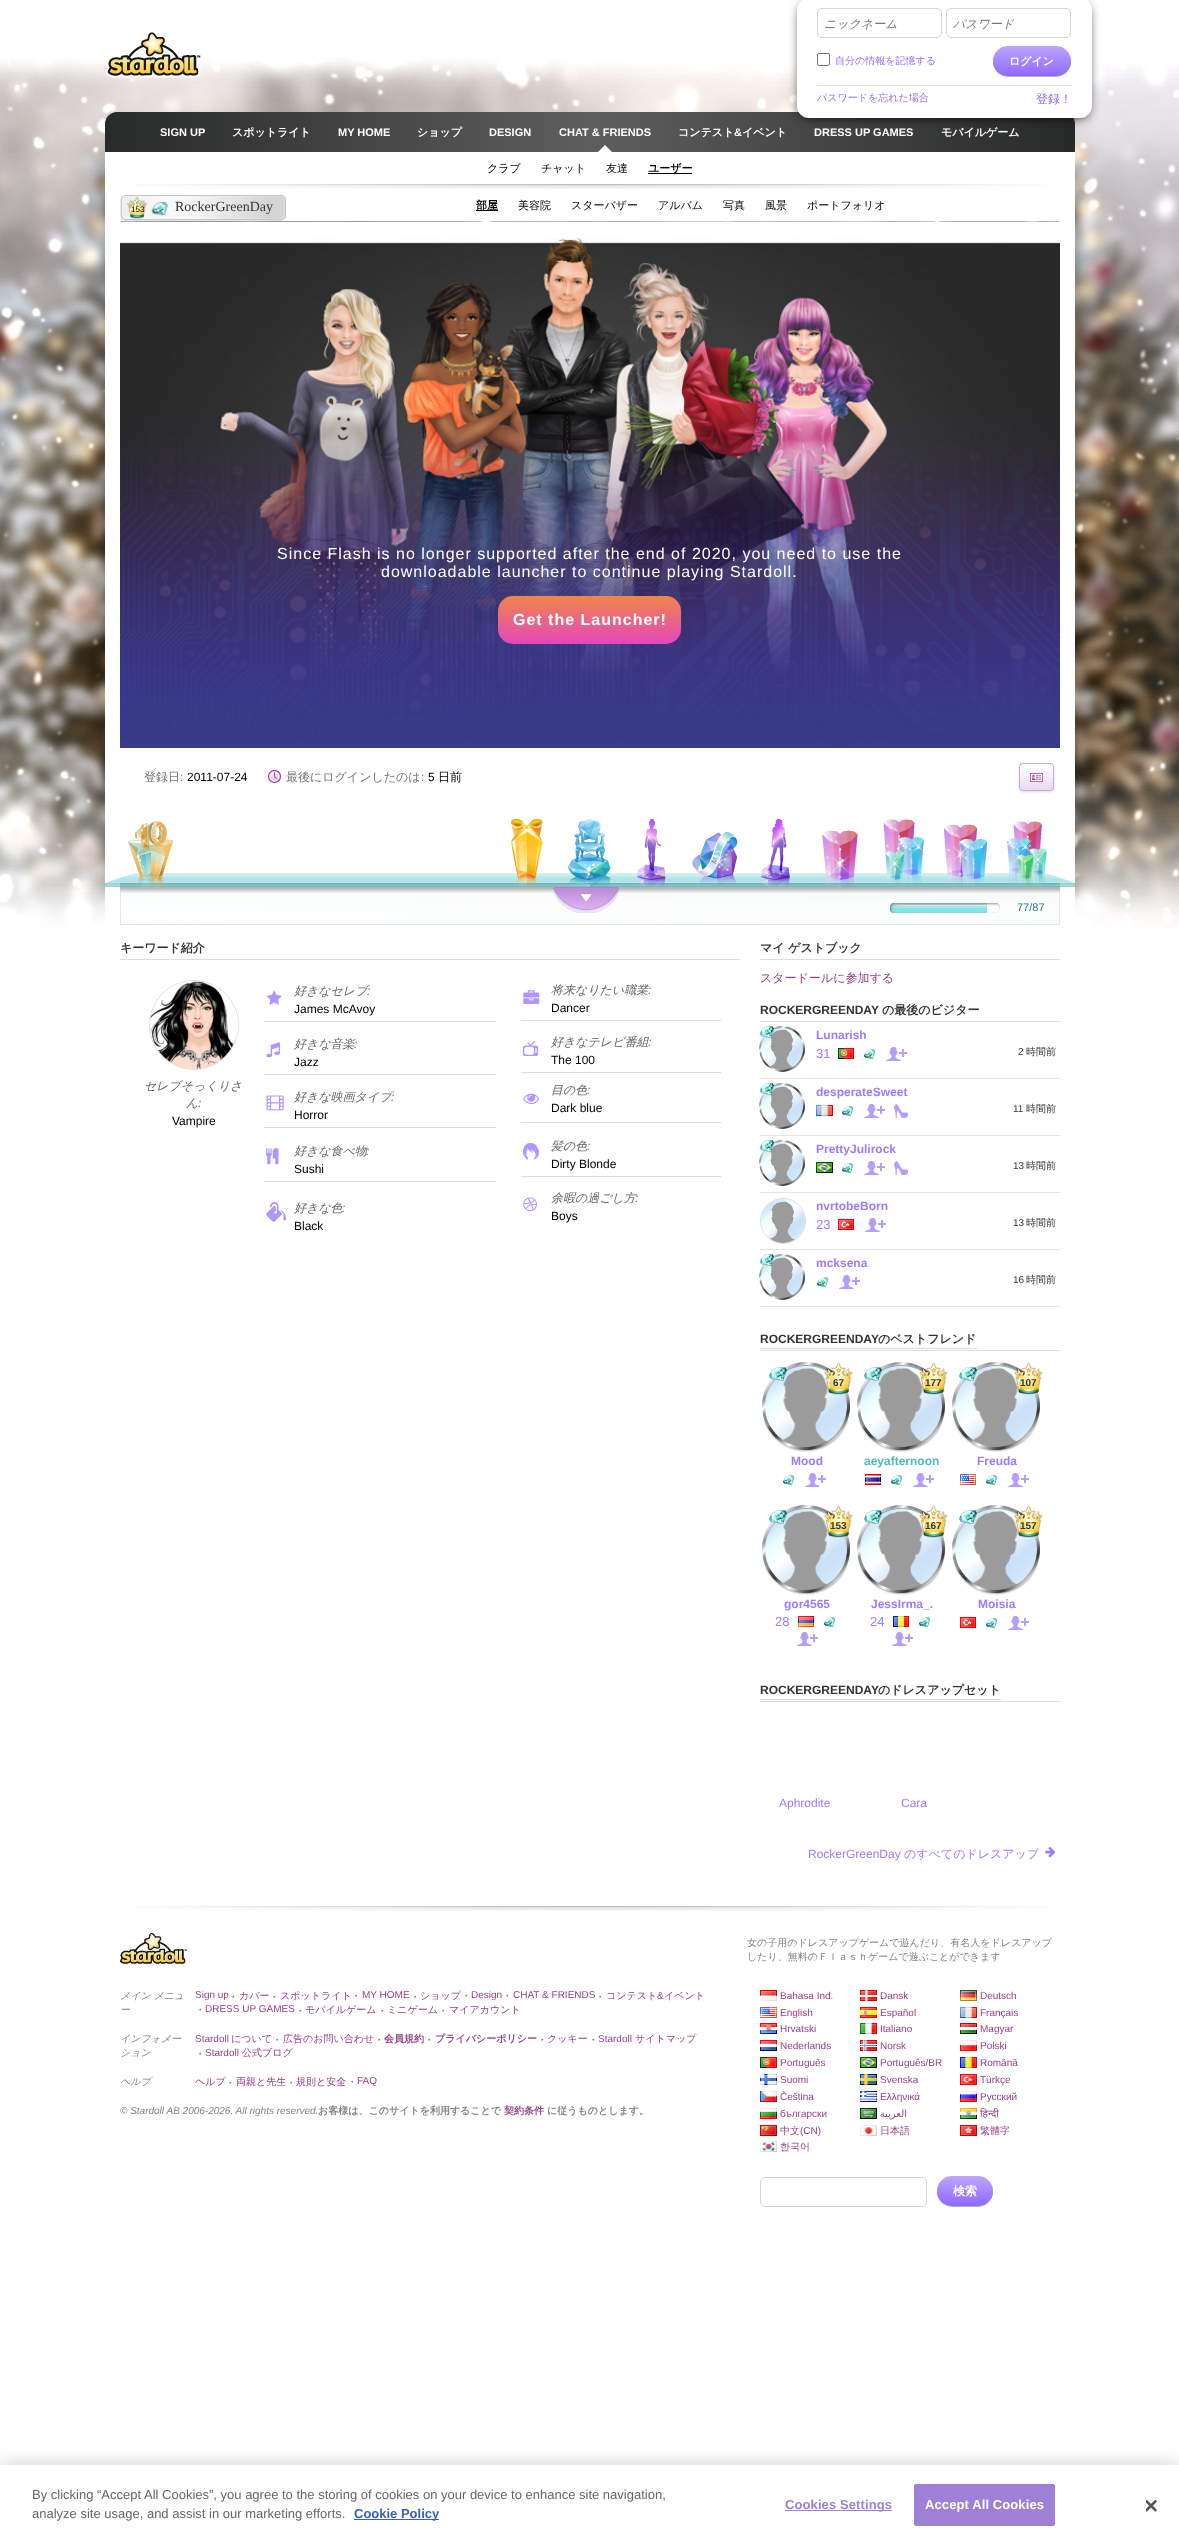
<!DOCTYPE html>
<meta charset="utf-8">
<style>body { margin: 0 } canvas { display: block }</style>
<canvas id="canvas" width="1179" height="2547"></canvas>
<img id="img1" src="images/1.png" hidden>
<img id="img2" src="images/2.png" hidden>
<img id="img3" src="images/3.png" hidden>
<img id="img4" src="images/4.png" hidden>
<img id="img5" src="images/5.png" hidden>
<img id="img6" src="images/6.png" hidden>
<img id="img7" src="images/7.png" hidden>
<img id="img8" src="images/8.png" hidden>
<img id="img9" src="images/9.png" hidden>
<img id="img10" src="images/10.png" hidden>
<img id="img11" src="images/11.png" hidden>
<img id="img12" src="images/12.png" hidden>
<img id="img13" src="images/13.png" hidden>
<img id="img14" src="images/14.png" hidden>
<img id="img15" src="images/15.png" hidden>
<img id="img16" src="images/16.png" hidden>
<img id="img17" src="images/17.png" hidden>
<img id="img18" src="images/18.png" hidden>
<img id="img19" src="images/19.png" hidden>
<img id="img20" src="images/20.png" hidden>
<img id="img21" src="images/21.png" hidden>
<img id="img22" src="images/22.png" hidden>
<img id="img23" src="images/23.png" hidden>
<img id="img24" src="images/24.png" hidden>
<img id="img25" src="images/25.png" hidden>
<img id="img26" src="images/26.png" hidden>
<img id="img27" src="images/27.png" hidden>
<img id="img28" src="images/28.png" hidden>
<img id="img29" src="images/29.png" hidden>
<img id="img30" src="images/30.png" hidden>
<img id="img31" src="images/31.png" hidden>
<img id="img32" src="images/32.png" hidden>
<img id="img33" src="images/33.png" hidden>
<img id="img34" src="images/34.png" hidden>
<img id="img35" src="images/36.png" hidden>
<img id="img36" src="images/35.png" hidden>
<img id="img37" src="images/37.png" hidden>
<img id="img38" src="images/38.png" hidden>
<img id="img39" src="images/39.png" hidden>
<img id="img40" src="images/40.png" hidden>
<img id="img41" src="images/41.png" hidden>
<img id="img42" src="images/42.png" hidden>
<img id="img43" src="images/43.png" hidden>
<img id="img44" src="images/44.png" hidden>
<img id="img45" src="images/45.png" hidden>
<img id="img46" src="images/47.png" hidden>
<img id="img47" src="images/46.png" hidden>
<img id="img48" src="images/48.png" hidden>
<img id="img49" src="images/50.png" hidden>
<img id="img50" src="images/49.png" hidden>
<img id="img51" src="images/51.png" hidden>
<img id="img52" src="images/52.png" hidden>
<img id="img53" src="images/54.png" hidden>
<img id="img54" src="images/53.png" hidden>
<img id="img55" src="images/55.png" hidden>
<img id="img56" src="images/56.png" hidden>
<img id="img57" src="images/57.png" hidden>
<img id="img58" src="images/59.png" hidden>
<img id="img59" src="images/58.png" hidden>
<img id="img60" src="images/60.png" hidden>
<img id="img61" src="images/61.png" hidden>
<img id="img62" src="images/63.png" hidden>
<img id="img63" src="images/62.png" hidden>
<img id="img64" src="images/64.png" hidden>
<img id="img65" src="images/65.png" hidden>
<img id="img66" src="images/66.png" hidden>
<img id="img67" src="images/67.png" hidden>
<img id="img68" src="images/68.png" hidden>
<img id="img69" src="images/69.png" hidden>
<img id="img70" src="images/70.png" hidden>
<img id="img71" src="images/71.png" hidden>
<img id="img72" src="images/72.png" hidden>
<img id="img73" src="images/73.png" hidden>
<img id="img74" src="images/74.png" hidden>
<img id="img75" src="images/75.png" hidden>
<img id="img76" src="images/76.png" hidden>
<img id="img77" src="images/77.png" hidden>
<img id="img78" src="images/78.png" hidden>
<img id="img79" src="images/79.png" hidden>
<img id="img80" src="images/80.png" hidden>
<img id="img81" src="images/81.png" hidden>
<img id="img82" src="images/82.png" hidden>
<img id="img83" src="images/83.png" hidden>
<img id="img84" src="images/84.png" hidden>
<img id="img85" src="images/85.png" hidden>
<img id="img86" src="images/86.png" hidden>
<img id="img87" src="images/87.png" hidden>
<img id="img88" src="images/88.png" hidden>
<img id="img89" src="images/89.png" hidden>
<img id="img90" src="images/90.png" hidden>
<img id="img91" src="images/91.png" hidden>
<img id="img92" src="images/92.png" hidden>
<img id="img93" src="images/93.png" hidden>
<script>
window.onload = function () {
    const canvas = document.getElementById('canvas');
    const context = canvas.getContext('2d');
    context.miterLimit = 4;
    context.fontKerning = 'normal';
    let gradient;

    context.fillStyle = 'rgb(255, 255, 255)';
    context.fillRect(0, 0, 1179, 2547);
    context.drawImage(document.getElementById('img1'), 0, 58, 1179, 870);
    context.fillStyle = 'rgba(0, 0, 0, 0.3)';
    context.filter = 'blur(8px)';
    context.beginPath();
    context.rect(103, 167, 20, 727);
    context.fill();
    context.filter = 'none';
    context.filter = 'blur(8px)';
    context.beginPath();
    context.rect(1057, 167, 20, 727);
    context.fill();
    context.filter = 'none';
    gradient = context.createLinearGradient(105, 132, 1075, 132);
    gradient.addColorStop(0, 'rgb(40, 41, 41)');
    gradient.addColorStop(0.5, 'rgb(94, 94, 94)');
    gradient.addColorStop(1, 'rgb(40, 41, 41)');
    context.fillStyle = gradient;
    context.beginPath();
    context.roundRect(105, 112, 970, 40, [12, 12, 0, 0]);
    context.fill();
    context.fillStyle = 'rgb(0, 0, 0)';
    context.filter = 'blur(6px)';
    context.beginPath();
    context.roundRect(801, 5, 287, 112, 8);
    context.fill();
    context.filter = 'none';
    context.fillStyle = 'rgb(255, 255, 255)';
    context.beginPath();
    context.roundRect(797, -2, 295, 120, 12);
    context.fill();
    context.beginPath();
    context.roundRect(817.5, 8.5, 124, 29, 4.5);
    context.strokeStyle = 'rgb(215, 215, 215)';
    context.stroke();
    context.beginPath();
    context.roundRect(946.5, 8.5, 124, 29, 4.5);
    context.stroke();
    context.beginPath();
    context.roundRect(817.5, 53.5, 12, 12, 1.5);
    context.strokeStyle = 'rgb(118, 118, 118)';
    context.stroke();
    context.fillStyle = 'rgba(0, 0, 0, 0.3)';
    context.filter = 'blur(0.5px)';
    context.beginPath();
    context.roundRect(993, 47, 78, 30, 15);
    context.fill();
    context.filter = 'none';
    gradient = context.createLinearGradient(1032, 46, 1032, 76);
    gradient.addColorStop(0, 'rgb(190, 164, 255)');
    gradient.addColorStop(1, 'rgb(144, 105, 255)');
    context.fillStyle = gradient;
    context.beginPath();
    context.roundRect(993, 46, 78, 30, 15);
    context.fill();
    context.fillStyle = 'rgb(223, 223, 223)';
    context.fillRect(817, 85, 255, 1);
    context.fillStyle = 'rgb(255, 255, 255)';
    context.fillRect(105, 152, 970, 69);
    context.beginPath();
    context.moveTo(613, 153);
    context.lineTo(597, 153);
    context.lineTo(605, 145);
    context.closePath();
    context.fill();
    context.fillStyle = 'rgb(0, 0, 0)';
    context.fillRect(648, 173, 44, 1);
    context.drawImage(document.getElementById('img2'), 135, 184, 912, 5);
    context.drawImage(document.getElementById('img3'), 282, 195, 4, 25);
    context.fillStyle = 'rgb(255, 255, 255)';
    context.fillRect(105, 221, 16, 1);
    context.drawImage(document.getElementById('img4'), 120, 195, 162, 27);
    context.fillStyle = 'rgb(0, 0, 0)';
    context.fillRect(476, 210, 22, 1);
    context.drawImage(document.getElementById('img5'), 105, 32, 96, 46);
    context.fillStyle = 'rgb(255, 255, 255)';
    context.fillRect(105, 222, 970, 706);
    context.drawImage(document.getElementById('img6'), 120, 238, 940, 510);
    gradient = context.createLinearGradient(590, 596, 590, 644);
    gradient.addColorStop(0, 'rgb(240, 134, 72)');
    gradient.addColorStop(1, 'rgb(228, 70, 191)');
    context.fillStyle = gradient;
    context.beginPath();
    context.roundRect(498, 596, 183, 48, 15);
    context.fill();
    context.drawImage(document.getElementById('img7'), 267, 770, 14, 13);
    context.fillStyle = 'rgba(104, 53, 113, 0.2)';
    context.filter = 'blur(1px)';
    context.beginPath();
    context.roundRect(1019, 764, 35, 28, 4);
    context.fill();
    context.filter = 'none';
    context.drawImage(document.getElementById('img8'), 1019, 763, 35, 28);
    context.beginPath();
    context.roundRect(1019.5, 763.5, 34, 27, 3.5);
    context.strokeStyle = 'rgb(203, 174, 205)';
    context.stroke();
    context.drawImage(document.getElementById('img9'), 1030, 773, 13, 9);
    context.drawImage(document.getElementById('img10'), 105, 873, 970, 52);
    context.drawImage(document.getElementById('img11'), 128, 821, 45, 68);
    context.drawImage(document.getElementById('img12'), 511, 819, 32, 68);
    context.drawImage(document.getElementById('img13'), 568, 819, 43, 69);
    context.drawImage(document.getElementById('img14'), 637, 819, 29, 68);
    context.drawImage(document.getElementById('img15'), 692, 832, 46, 54);
    context.drawImage(document.getElementById('img16'), 761, 819, 29, 68);
    context.drawImage(document.getElementById('img17'), 822, 830, 36, 58);
    context.drawImage(document.getElementById('img18'), 883, 819, 41, 67);
    context.drawImage(document.getElementById('img19'), 943, 824, 44, 63);
    context.drawImage(document.getElementById('img20'), 1007, 821, 40, 66);
    context.drawImage(document.getElementById('img21'), 553, 887, 66, 26);
    context.drawImage(document.getElementById('img22'), 890, 903, 110, 10);
    context.drawImage(document.getElementById('img23'), 890, 903, 97, 10);
    context.fillStyle = 'rgb(221, 221, 221)';
    context.fillRect(120, 959, 620, 1);
    context.beginPath();
    context.arc(194, 1025, 44.5, 0, 2 * Math.PI);
    context.strokeStyle = 'rgb(221, 221, 221)';
    context.stroke();
    context.drawImage(document.getElementById('img24'), 150, 981, 88, 88);
    context.fillRect(264, 1021, 232, 1);
    context.drawImage(document.getElementById('img25'), 266, 990, 16, 15);
    context.fillRect(264, 1074, 232, 1);
    context.drawImage(document.getElementById('img26'), 266, 1042, 14, 16);
    context.fillRect(264, 1127, 232, 1);
    context.drawImage(document.getElementById('img27'), 266, 1095, 18, 16);
    context.fillRect(264, 1181, 232, 1);
    context.drawImage(document.getElementById('img28'), 266, 1148, 13, 17);
    context.drawImage(document.getElementById('img29'), 266, 1202, 20, 20);
    context.fillRect(521, 1020, 200, 1);
    context.drawImage(document.getElementById('img30'), 523, 990, 17, 14);
    context.fillRect(521, 1072, 200, 1);
    context.drawImage(document.getElementById('img31'), 523, 1041, 15, 15);
    context.fillRect(521, 1122, 200, 1);
    context.drawImage(document.getElementById('img32'), 523, 1093, 17, 11);
    context.fillRect(521, 1176, 200, 1);
    context.drawImage(document.getElementById('img33'), 523, 1143, 16, 17);
    context.drawImage(document.getElementById('img34'), 523, 1197, 14, 15);
    context.fillRect(760, 959, 300, 1);
    context.fillRect(760, 1021, 300, 1);
    context.fillStyle = 'rgb(229, 229, 229)';
    context.fillRect(760, 1078, 300, 1);
    context.drawImage(document.getElementById('img35'), 760, 1028, 43, 42);
    context.drawImage(document.getElementById('img36'), 759, 1026, 46, 46);
    context.drawImage(document.getElementById('img37'), 838, 1048, 16, 11);
    context.drawImage(document.getElementById('img38'), 864, 1049, 12, 10);
    context.drawImage(document.getElementById('img39'), 886, 1047, 21, 14);
    context.fillRect(760, 1135, 300, 1);
    context.drawImage(document.getElementById('img35'), 760, 1085, 43, 42);
    context.drawImage(document.getElementById('img36'), 759, 1083, 46, 46);
    context.drawImage(document.getElementById('img40'), 816, 1105, 17, 11);
    context.drawImage(document.getElementById('img38'), 842, 1106, 12, 10);
    context.drawImage(document.getElementById('img39'), 864, 1104, 21, 14);
    context.drawImage(document.getElementById('img41'), 894, 1104, 14, 14);
    context.fillRect(760, 1192, 300, 1);
    context.drawImage(document.getElementById('img35'), 760, 1142, 43, 42);
    context.drawImage(document.getElementById('img36'), 759, 1140, 46, 46);
    context.drawImage(document.getElementById('img42'), 816, 1162, 17, 11);
    context.drawImage(document.getElementById('img38'), 842, 1163, 12, 10);
    context.drawImage(document.getElementById('img39'), 864, 1161, 21, 14);
    context.drawImage(document.getElementById('img41'), 894, 1161, 14, 14);
    context.fillRect(760, 1249, 300, 1);
    context.beginPath();
    context.arc(783, 1221, 22.5, 0, 2 * Math.PI);
    context.stroke();
    context.drawImage(document.getElementById('img43'), 761, 1199, 44, 44);
    context.drawImage(document.getElementById('img44'), 838, 1219, 16, 11);
    context.drawImage(document.getElementById('img39'), 865, 1218, 21, 14);
    context.fillRect(760, 1306, 300, 1);
    context.drawImage(document.getElementById('img45'), 760, 1256, 43, 42);
    context.drawImage(document.getElementById('img36'), 759, 1254, 46, 46);
    context.drawImage(document.getElementById('img38'), 817, 1277, 12, 10);
    context.drawImage(document.getElementById('img39'), 839, 1275, 21, 14);
    context.fillStyle = 'rgb(221, 221, 221)';
    context.fillRect(760, 1350, 300, 1);
    context.fillRect(760, 1348, 217, 1);
    context.drawImage(document.getElementById('img46'), 765, 1365, 82, 82);
    context.drawImage(document.getElementById('img47'), 762, 1362, 88, 90);
    context.drawImage(document.getElementById('img48'), 824, 1362, 29, 33);
    context.drawImage(document.getElementById('img38'), 783, 1475, 12, 10);
    context.drawImage(document.getElementById('img39'), 805, 1473, 21, 14);
    context.drawImage(document.getElementById('img49'), 860, 1365, 82, 82);
    context.drawImage(document.getElementById('img50'), 857, 1362, 88, 90);
    context.drawImage(document.getElementById('img51'), 919, 1362, 29, 33);
    context.drawImage(document.getElementById('img52'), 865, 1474, 16, 11);
    context.drawImage(document.getElementById('img38'), 891, 1475, 12, 10);
    context.drawImage(document.getElementById('img39'), 913, 1473, 21, 14);
    context.drawImage(document.getElementById('img53'), 955, 1365, 82, 82);
    context.drawImage(document.getElementById('img54'), 952, 1362, 88, 90);
    context.drawImage(document.getElementById('img48'), 1014, 1362, 29, 33);
    context.drawImage(document.getElementById('img55'), 960, 1474, 16, 11);
    context.drawImage(document.getElementById('img38'), 986, 1475, 12, 10);
    context.drawImage(document.getElementById('img39'), 1008, 1473, 21, 14);
    context.drawImage(document.getElementById('img56'), 765, 1508, 82, 82);
    context.drawImage(document.getElementById('img47'), 762, 1505, 88, 90);
    context.drawImage(document.getElementById('img48'), 824, 1505, 29, 33);
    context.drawImage(document.getElementById('img57'), 798, 1616, 16, 11);
    context.drawImage(document.getElementById('img38'), 824, 1617, 12, 10);
    context.drawImage(document.getElementById('img39'), 797, 1632, 21, 14);
    context.drawImage(document.getElementById('img58'), 860, 1508, 82, 82);
    context.drawImage(document.getElementById('img59'), 857, 1505, 88, 90);
    context.drawImage(document.getElementById('img60'), 919, 1505, 29, 33);
    context.drawImage(document.getElementById('img61'), 893, 1616, 16, 11);
    context.drawImage(document.getElementById('img38'), 919, 1617, 12, 10);
    context.drawImage(document.getElementById('img39'), 892, 1632, 21, 14);
    context.drawImage(document.getElementById('img62'), 955, 1508, 82, 82);
    context.drawImage(document.getElementById('img63'), 952, 1505, 88, 90);
    context.drawImage(document.getElementById('img48'), 1014, 1505, 29, 33);
    context.drawImage(document.getElementById('img44'), 960, 1617, 16, 11);
    context.drawImage(document.getElementById('img38'), 986, 1618, 12, 10);
    context.drawImage(document.getElementById('img39'), 1008, 1616, 21, 14);
    context.fillRect(760, 1701, 300, 1);
    context.fillRect(760, 1699, 241, 1);
    context.drawImage(document.getElementById('img64'), 1045, 1847, 10, 11);
    context.fillStyle = 'rgb(255, 255, 255)';
    context.fillRect(1059, 221, 16, 1);
    context.drawImage(document.getElementById('img2'), 135, 1906, 912, 5);
    context.drawImage(document.getElementById('img65'), 120, 1931, 69, 35);
    context.drawImage(document.getElementById('img66'), 760, 1990, 17, 11);
    context.drawImage(document.getElementById('img67'), 860, 1990, 17, 11);
    context.drawImage(document.getElementById('img68'), 960, 1990, 17, 11);
    context.drawImage(document.getElementById('img69'), 760, 2007, 17, 11);
    context.drawImage(document.getElementById('img70'), 860, 2007, 17, 11);
    context.drawImage(document.getElementById('img40'), 960, 2007, 17, 11);
    context.drawImage(document.getElementById('img71'), 760, 2023, 17, 11);
    context.drawImage(document.getElementById('img72'), 860, 2023, 17, 11);
    context.drawImage(document.getElementById('img73'), 960, 2023, 17, 11);
    context.drawImage(document.getElementById('img74'), 760, 2040, 17, 11);
    context.drawImage(document.getElementById('img75'), 860, 2040, 17, 11);
    context.drawImage(document.getElementById('img76'), 960, 2040, 17, 11);
    context.drawImage(document.getElementById('img77'), 760, 2057, 17, 11);
    context.drawImage(document.getElementById('img78'), 860, 2057, 17, 11);
    context.drawImage(document.getElementById('img79'), 960, 2057, 17, 11);
    context.drawImage(document.getElementById('img80'), 760, 2074, 17, 11);
    context.drawImage(document.getElementById('img81'), 860, 2074, 17, 11);
    context.drawImage(document.getElementById('img82'), 960, 2074, 17, 11);
    context.drawImage(document.getElementById('img83'), 760, 2091, 17, 11);
    context.drawImage(document.getElementById('img84'), 860, 2091, 17, 11);
    context.drawImage(document.getElementById('img85'), 960, 2091, 17, 11);
    context.drawImage(document.getElementById('img86'), 760, 2108, 17, 11);
    context.drawImage(document.getElementById('img87'), 860, 2108, 17, 11);
    context.drawImage(document.getElementById('img88'), 960, 2108, 17, 11);
    context.drawImage(document.getElementById('img89'), 760, 2125, 17, 11);
    context.drawImage(document.getElementById('img90'), 860, 2125, 17, 11);
    context.drawImage(document.getElementById('img91'), 960, 2125, 17, 11);
    context.drawImage(document.getElementById('img92'), 760, 2141, 17, 11);
    context.beginPath();
    context.roundRect(760.5, 2177.5, 166, 29, 4.5);
    context.strokeStyle = 'rgb(215, 215, 215)';
    context.stroke();
    context.fillStyle = 'rgba(0, 0, 0, 0.3)';
    context.filter = 'blur(0.5px)';
    context.beginPath();
    context.roundRect(937, 2177, 56, 30, 15);
    context.fill();
    context.filter = 'none';
    gradient = context.createLinearGradient(965, 2176, 965, 2206);
    gradient.addColorStop(0, 'rgb(190, 164, 255)');
    gradient.addColorStop(1, 'rgb(144, 105, 255)');
    context.fillStyle = gradient;
    context.beginPath();
    context.roundRect(937, 2176, 56, 30, 15);
    context.fill();
    context.fillStyle = 'rgba(0, 0, 0, 0.2)';
    context.filter = 'blur(9px)';
    context.beginPath();
    context.rect(0, 2465, 1179, 82);
    context.fill();
    context.filter = 'none';
    context.fillStyle = 'rgb(255, 255, 255)';
    context.fillRect(0, 2465, 1179, 82);
    context.fillStyle = 'rgb(56, 96, 190)';
    context.fillRect(354, 2519, 85, 1);
    context.fillStyle = 'rgb(158, 128, 214)';
    context.fillRect(785, 2510, 107, 1);
    context.beginPath();
    context.roundRect(914.5, 2484.5, 140, 41, 1.5);
    context.fill();
    context.strokeStyle = 'rgb(158, 128, 214)';
    context.stroke();
    context.drawImage(document.getElementById('img93'), 1146, 2500, 11, 12);
    context.font = 'italic 500 12px WenQuanYi Zen Hei';
    context.fillStyle = 'rgb(119, 119, 119)';
    context.fillText('ニックネーム', 824, 28);
    context.fillText('パスワード', 953, 28);
    context.font = '500 10px WenQuanYi Zen Hei';
    context.fillStyle = 'rgb(144, 110, 251)';
    context.fillText('自分の情報を記憶する', 835, 64);
    context.font = 'bold 11px WenQuanYi Zen Hei';
    context.fillStyle = 'rgb(255, 255, 255)';
    context.fillText('ログイン', 1009, 65);
    context.font = '500 10px WenQuanYi Zen Hei';
    context.fillStyle = 'rgb(144, 110, 251)';
    context.fillText('パスワードを忘れた場合', 817, 101);
    context.font = '500 12px WenQuanYi Zen Hei';
    context.fillText('登録！', 1036, 103);
    context.font = 'bold 11px Liberation Sans';
    context.fillStyle = 'rgb(255, 255, 255)';
    context.fillText('SIGN UP', 160, 136);
    context.font = 'bold 11px WenQuanYi Zen Hei';
    context.fillText('スポットライト', 232, 136);
    context.font = 'bold 11px Liberation Sans';
    context.fillText('MY HOME', 338, 136);
    context.font = 'bold 11px WenQuanYi Zen Hei';
    context.fillText('ショップ', 417, 136);
    context.font = 'bold 11px Liberation Sans';
    context.fillText('DESIGN', 489, 136);
    context.fillText('CHAT & FRIENDS', 559, 136);
    context.font = 'bold 11px WenQuanYi Zen Hei';
    context.fillText('コンテスト', 678, 136);
    context.font = 'bold 11px Liberation Sans';
    context.fillText('&', 734, 136);
    context.font = 'bold 11px WenQuanYi Zen Hei';
    context.fillText('イベント', 742, 136);
    context.font = 'bold 11px Liberation Sans';
    context.fillText('DRESS UP GAMES', 814, 136);
    context.font = 'bold 11px WenQuanYi Zen Hei';
    context.fillText('モバイルゲーム', 941, 136);
    context.font = '500 11px WenQuanYi Zen Hei';
    context.fillStyle = 'rgb(0, 0, 0)';
    context.fillText('クラブ', 487, 172);
    context.fillText('チャット', 541, 172);
    context.fillText('友達', 606, 172);
    context.font = 'bold 11px WenQuanYi Zen Hei';
    context.fillText('ユーザー', 648, 172);
    context.font = '8px Liberation Sans';
    context.fillText('153', 131, 212);
    context.font = '14px Liberation Serif';
    context.fillStyle = 'rgb(51, 51, 51)';
    context.fillText('RockerGreenDay', 175, 211);
    context.font = 'bold 11px WenQuanYi Zen Hei';
    context.fillStyle = 'rgb(0, 0, 0)';
    context.fillText('部屋', 476, 209);
    context.font = '500 11px WenQuanYi Zen Hei';
    context.fillText('美容院', 518, 209);
    context.fillText('スターバザー', 571, 209);
    context.fillText('アルバム', 658, 209);
    context.fillText('写真', 723, 209);
    context.fillText('風景', 765, 209);
    context.fillText('ポートフォリオ', 807, 209);
    context.letterSpacing = '1px';
    context.font = '16px Liberation Sans';
    context.fillStyle = 'rgb(255, 255, 255)';
    context.fillText('Since Flash is no longer supported after the end of 2020, you need to use the', 277, 559);
    context.fillText('downloadable launcher to continue playing Stardoll.', 381, 577);
    context.font = 'bold 16px Liberation Sans';
    context.fillText('Get the Launcher!', 513, 625);
    context.letterSpacing = '0px';
    context.font = '500 12px WenQuanYi Zen Hei';
    context.fillStyle = 'rgb(119, 119, 119)';
    context.fillText('登録日', 144, 781);
    context.font = '12px Liberation Sans';
    context.fillText(':', 180, 781);
    context.fillStyle = 'rgb(0, 0, 0)';
    context.fillText('2011-07-24', 187, 781);
    context.font = '500 12px WenQuanYi Zen Hei';
    context.fillStyle = 'rgb(119, 119, 119)';
    context.fillText('最後にログインしたのは', 286, 781);
    context.font = '12px Liberation Sans';
    context.fillText(':', 421, 781);
    context.fillStyle = 'rgb(0, 0, 0)';
    context.fillText('5', 428, 781);
    context.font = '500 12px WenQuanYi Zen Hei';
    context.fillText('日前', 438, 781);
    context.font = '11px Liberation Sans';
    context.fillStyle = 'rgb(34, 120, 143)';
    context.fillText('77/87', 1017, 911);
    context.font = 'bold 12px WenQuanYi Zen Hei';
    context.fillStyle = 'rgb(51, 51, 51)';
    context.fillText('キーワード紹介', 120, 952);
    context.font = 'italic 500 12px WenQuanYi Zen Hei';
    context.fillStyle = 'rgb(102, 102, 102)';
    context.fillText('セレブそっくりさ', 144, 1090);
    context.fillText('ん', 186, 1107);
    context.font = 'italic 12px Liberation Sans';
    context.fillText(':', 198, 1107);
    context.font = '12px Liberation Sans';
    context.fillStyle = 'rgb(0, 0, 0)';
    context.fillText('Vampire', 172, 1125);
    context.font = 'italic 500 12px WenQuanYi Zen Hei';
    context.fillStyle = 'rgb(102, 102, 102)';
    context.fillText('好きなセレブ', 294, 995);
    context.font = 'italic 12px Liberation Sans';
    context.fillText(':', 367, 995);
    context.font = '12px Liberation Sans';
    context.fillStyle = 'rgb(0, 0, 0)';
    context.fillText('James McAvoy', 294, 1013);
    context.font = 'italic 500 12px WenQuanYi Zen Hei';
    context.fillStyle = 'rgb(102, 102, 102)';
    context.fillText('好きな音楽', 294, 1048);
    context.font = 'italic 12px Liberation Sans';
    context.fillText(':', 354, 1048);
    context.font = '12px Liberation Sans';
    context.fillStyle = 'rgb(0, 0, 0)';
    context.fillText('Jazz', 294, 1066);
    context.font = 'italic 500 12px WenQuanYi Zen Hei';
    context.fillStyle = 'rgb(102, 102, 102)';
    context.fillText('好きな映画タイプ', 294, 1101);
    context.font = 'italic 12px Liberation Sans';
    context.fillText(':', 391, 1101);
    context.font = '12px Liberation Sans';
    context.fillStyle = 'rgb(0, 0, 0)';
    context.fillText('Horror', 294, 1119);
    context.font = 'italic 500 12px WenQuanYi Zen Hei';
    context.fillStyle = 'rgb(102, 102, 102)';
    context.fillText('好きな食べ物', 294, 1155);
    context.font = 'italic 12px Liberation Sans';
    context.fillText(':', 366, 1155);
    context.font = '12px Liberation Sans';
    context.fillStyle = 'rgb(0, 0, 0)';
    context.fillText('Sushi', 294, 1173);
    context.font = 'italic 500 12px WenQuanYi Zen Hei';
    context.fillStyle = 'rgb(102, 102, 102)';
    context.fillText('好きな色', 294, 1212);
    context.font = 'italic 12px Liberation Sans';
    context.fillText(':', 342, 1212);
    context.font = '12px Liberation Sans';
    context.fillStyle = 'rgb(0, 0, 0)';
    context.fillText('Black', 294, 1230);
    context.font = 'italic 500 12px WenQuanYi Zen Hei';
    context.fillStyle = 'rgb(102, 102, 102)';
    context.fillText('将来なりたい職業', 551, 994);
    context.font = 'italic 12px Liberation Sans';
    context.fillText(':', 648, 994);
    context.font = '12px Liberation Sans';
    context.fillStyle = 'rgb(0, 0, 0)';
    context.fillText('Dancer', 551, 1012);
    context.font = 'italic 500 12px WenQuanYi Zen Hei';
    context.fillStyle = 'rgb(102, 102, 102)';
    context.fillText('好きなテレビ番組', 551, 1046);
    context.font = 'italic 12px Liberation Sans';
    context.fillText(':', 648, 1046);
    context.font = '12px Liberation Sans';
    context.fillStyle = 'rgb(0, 0, 0)';
    context.fillText('The 100', 551, 1064);
    context.font = 'italic 500 12px WenQuanYi Zen Hei';
    context.fillStyle = 'rgb(102, 102, 102)';
    context.fillText('目の色', 551, 1094);
    context.font = 'italic 12px Liberation Sans';
    context.fillText(':', 587, 1094);
    context.font = '12px Liberation Sans';
    context.fillStyle = 'rgb(0, 0, 0)';
    context.fillText('Dark blue', 551, 1112);
    context.font = 'italic 500 12px WenQuanYi Zen Hei';
    context.fillStyle = 'rgb(102, 102, 102)';
    context.fillText('髪の色', 551, 1150);
    context.font = 'italic 12px Liberation Sans';
    context.fillText(':', 587, 1150);
    context.font = '12px Liberation Sans';
    context.fillStyle = 'rgb(0, 0, 0)';
    context.fillText('Dirty Blonde', 551, 1168);
    context.font = 'italic 500 12px WenQuanYi Zen Hei';
    context.fillStyle = 'rgb(102, 102, 102)';
    context.fillText('余暇の過ごし方', 551, 1202);
    context.font = 'italic 12px Liberation Sans';
    context.fillText(':', 635, 1202);
    context.font = '12px Liberation Sans';
    context.fillStyle = 'rgb(0, 0, 0)';
    context.fillText('Boys', 551, 1220);
    context.font = 'bold 12px WenQuanYi Zen Hei';
    context.fillStyle = 'rgb(51, 51, 51)';
    context.fillText('マイ ゲストブック', 760, 952);
    context.font = '500 12px WenQuanYi Zen Hei';
    context.fillStyle = 'rgb(148, 63, 136)';
    context.fillText('スタードールに参加する', 760, 982);
    context.font = 'bold 12px Liberation Sans';
    context.fillStyle = 'rgb(51, 51, 51)';
    context.fillText('ROCKERGREENDAY', 760, 1014);
    context.font = 'bold 12px WenQuanYi Zen Hei';
    context.fillText('の最後のビジター', 882, 1014);
    context.font = 'bold 12px Liberation Sans';
    context.fillStyle = 'rgb(156, 123, 255)';
    context.fillText('Lunarish', 816, 1039);
    context.font = '13px Liberation Sans';
    context.fillText('31', 816, 1058);
    context.font = '10px Liberation Sans';
    context.fillStyle = 'rgb(51, 51, 51)';
    context.fillText('2', 1018, 1055);
    context.font = '500 10px WenQuanYi Zen Hei';
    context.fillText('時間前', 1026, 1055);
    context.font = 'bold 12px Liberation Sans';
    context.fillStyle = 'rgb(156, 123, 255)';
    context.fillText('desperateSweet', 816, 1096);
    context.font = '10px Liberation Sans';
    context.fillStyle = 'rgb(51, 51, 51)';
    context.fillText('11', 1013, 1112);
    context.font = '500 10px WenQuanYi Zen Hei';
    context.fillText('時間前', 1026, 1112);
    context.font = 'bold 12px Liberation Sans';
    context.fillStyle = 'rgb(156, 123, 255)';
    context.fillText('PrettyJulirock', 816, 1153);
    context.font = '10px Liberation Sans';
    context.fillStyle = 'rgb(51, 51, 51)';
    context.fillText('13', 1013, 1169);
    context.font = '500 10px WenQuanYi Zen Hei';
    context.fillText('時間前', 1026, 1169);
    context.font = 'bold 12px Liberation Sans';
    context.fillStyle = 'rgb(156, 123, 255)';
    context.fillText('nvrtobeBorn', 816, 1210);
    context.font = '13px Liberation Sans';
    context.fillText('23', 816, 1229);
    context.font = '10px Liberation Sans';
    context.fillStyle = 'rgb(51, 51, 51)';
    context.fillText('13', 1013, 1226);
    context.font = '500 10px WenQuanYi Zen Hei';
    context.fillText('時間前', 1026, 1226);
    context.font = 'bold 12px Liberation Sans';
    context.fillStyle = 'rgb(156, 123, 255)';
    context.fillText('mcksena', 816, 1267);
    context.font = '10px Liberation Sans';
    context.fillStyle = 'rgb(51, 51, 51)';
    context.fillText('16', 1013, 1283);
    context.font = '500 10px WenQuanYi Zen Hei';
    context.fillText('時間前', 1026, 1283);
    context.font = 'bold 12px Liberation Sans';
    context.fillText('ROCKERGREENDAY', 760, 1343);
    context.font = 'bold 12px WenQuanYi Zen Hei';
    context.fillText('のベストフレンド', 878, 1343);
    context.font = 'bold 10px Liberation Sans';
    context.fillText('67', 833, 1386);
    context.font = 'bold 12px Liberation Sans';
    context.fillStyle = 'rgb(156, 123, 255)';
    context.fillText('Mood', 791, 1465);
    context.font = 'bold 10px Liberation Sans';
    context.fillStyle = 'rgb(51, 51, 51)';
    context.fillText('177', 925, 1386);
    context.font = 'bold 12px Liberation Sans';
    context.fillStyle = 'rgb(78, 188, 186)';
    context.fillText('aeyafternoon', 864, 1465);
    context.font = 'bold 10px Liberation Sans';
    context.fillStyle = 'rgb(51, 51, 51)';
    context.fillText('107', 1020, 1386);
    context.font = 'bold 12px Liberation Sans';
    context.fillStyle = 'rgb(156, 123, 255)';
    context.fillText('Freuda', 977, 1465);
    context.font = 'bold 10px Liberation Sans';
    context.fillStyle = 'rgb(51, 51, 51)';
    context.fillText('153', 830, 1529);
    context.font = 'bold 12px Liberation Sans';
    context.fillStyle = 'rgb(156, 123, 255)';
    context.fillText('gor4565', 784, 1608);
    context.font = '13px Liberation Sans';
    context.fillText('28', 775, 1626);
    context.font = 'bold 10px Liberation Sans';
    context.fillStyle = 'rgb(51, 51, 51)';
    context.fillText('167', 925, 1529);
    context.font = 'bold 12px Liberation Sans';
    context.fillStyle = 'rgb(156, 123, 255)';
    context.fillText('JessIrma_.', 871, 1608);
    context.font = '13px Liberation Sans';
    context.fillText('24', 870, 1626);
    context.font = 'bold 10px Liberation Sans';
    context.fillStyle = 'rgb(51, 51, 51)';
    context.fillText('157', 1020, 1529);
    context.font = 'bold 12px Liberation Sans';
    context.fillStyle = 'rgb(156, 123, 255)';
    context.fillText('Moisia', 978, 1608);
    context.fillStyle = 'rgb(51, 51, 51)';
    context.fillText('ROCKERGREENDAY', 760, 1694);
    context.font = 'bold 12px WenQuanYi Zen Hei';
    context.fillText('のドレスアップセット', 878, 1694);
    context.font = '12px Liberation Sans';
    context.fillStyle = 'rgb(156, 123, 255)';
    context.fillText('Aphrodite', 779, 1807);
    context.fillText('Cara', 901, 1807);
    context.fillText('RockerGreenDay', 808, 1858);
    context.font = '500 12px WenQuanYi Zen Hei';
    context.fillText('のすべてのドレスアップ', 904, 1858);
    context.font = '500 10px WenQuanYi Zen Hei';
    context.fillStyle = 'rgb(130, 130, 132)';
    context.fillText('女の子用のドレスアップゲームで遊んだり、有名人をドレスアップ', 747, 1946);
    context.fillText('したり、無料のＦｌａｓｈゲームで遊ぶことができます', 747, 1960);
    context.font = 'italic 500 10px WenQuanYi Zen Hei';
    context.fillText('メイン メニュ', 120, 1999);
    context.fillText('ー', 120, 2013);
    context.font = '10px Liberation Sans';
    context.fillStyle = 'rgb(148, 63, 136)';
    context.fillText('Sign up', 195, 1998);
    context.font = '7px Liberation Sans';
    context.fillStyle = 'rgb(130, 130, 132)';
    context.fillText('•', 232, 1999);
    context.font = '500 10px WenQuanYi Zen Hei';
    context.fillStyle = 'rgb(148, 63, 136)';
    context.fillText('カバー', 239, 1999);
    context.font = '7px Liberation Sans';
    context.fillStyle = 'rgb(130, 130, 132)';
    context.fillText('•', 273, 1999);
    context.font = '500 10px WenQuanYi Zen Hei';
    context.fillStyle = 'rgb(148, 63, 136)';
    context.fillText('スポットライト', 280, 1999);
    context.font = '7px Liberation Sans';
    context.fillStyle = 'rgb(130, 130, 132)';
    context.fillText('•', 355, 1998);
    context.font = '10px Liberation Sans';
    context.fillStyle = 'rgb(148, 63, 136)';
    context.fillText('MY HOME', 362, 1998);
    context.font = '7px Liberation Sans';
    context.fillStyle = 'rgb(130, 130, 132)';
    context.fillText('•', 414, 1999);
    context.font = '500 10px WenQuanYi Zen Hei';
    context.fillStyle = 'rgb(148, 63, 136)';
    context.fillText('ショップ', 420, 1999);
    context.font = '7px Liberation Sans';
    context.fillStyle = 'rgb(130, 130, 132)';
    context.fillText('•', 465, 1998);
    context.font = '10px Liberation Sans';
    context.fillStyle = 'rgb(148, 63, 136)';
    context.fillText('Design', 471, 1998);
    context.font = '7px Liberation Sans';
    context.fillStyle = 'rgb(130, 130, 132)';
    context.fillText('•', 506, 1998);
    context.font = '10px Liberation Sans';
    context.fillStyle = 'rgb(148, 63, 136)';
    context.fillText('CHAT & FRIENDS', 513, 1998);
    context.font = '7px Liberation Sans';
    context.fillStyle = 'rgb(130, 130, 132)';
    context.fillText('•', 599, 1999);
    context.font = '500 10px WenQuanYi Zen Hei';
    context.fillStyle = 'rgb(148, 63, 136)';
    context.fillText('コンテスト', 606, 1999);
    context.font = '10px Liberation Sans';
    context.fillText('&', 657, 1999);
    context.font = '500 10px WenQuanYi Zen Hei';
    context.fillText('イベント', 664, 1999);
    context.font = '7px Liberation Sans';
    context.fillStyle = 'rgb(130, 130, 132)';
    context.fillText('•', 199, 2012);
    context.font = '10px Liberation Sans';
    context.fillStyle = 'rgb(148, 63, 136)';
    context.fillText('DRESS UP GAMES', 205, 2012);
    context.font = '7px Liberation Sans';
    context.fillStyle = 'rgb(130, 130, 132)';
    context.fillText('•', 299, 2013);
    context.font = '500 10px WenQuanYi Zen Hei';
    context.fillStyle = 'rgb(148, 63, 136)';
    context.fillText('モバイルゲーム', 305, 2013);
    context.font = '7px Liberation Sans';
    context.fillStyle = 'rgb(130, 130, 132)';
    context.fillText('•', 381, 2013);
    context.font = '500 10px WenQuanYi Zen Hei';
    context.fillStyle = 'rgb(148, 63, 136)';
    context.fillText('ミニゲーム', 387, 2013);
    context.font = '7px Liberation Sans';
    context.fillStyle = 'rgb(130, 130, 132)';
    context.fillText('•', 442, 2013);
    context.font = '500 10px WenQuanYi Zen Hei';
    context.fillStyle = 'rgb(148, 63, 136)';
    context.fillText('マイアカウント', 449, 2013);
    context.font = 'italic 500 10px WenQuanYi Zen Hei';
    context.fillStyle = 'rgb(130, 130, 132)';
    context.fillText('インフォメー', 120, 2042);
    context.fillText('ション', 120, 2056);
    context.font = '10px Liberation Sans';
    context.fillStyle = 'rgb(148, 63, 136)';
    context.fillText('Stardoll', 195, 2042);
    context.font = '500 10px WenQuanYi Zen Hei';
    context.fillText('について', 231, 2042);
    context.font = '7px Liberation Sans';
    context.fillStyle = 'rgb(130, 130, 132)';
    context.fillText('•', 276, 2042);
    context.font = '500 10px WenQuanYi Zen Hei';
    context.fillStyle = 'rgb(148, 63, 136)';
    context.fillText('広告のお問い合わせ', 283, 2042);
    context.font = '7px Liberation Sans';
    context.fillStyle = 'rgb(130, 130, 132)';
    context.fillText('•', 378, 2042);
    context.font = 'bold 10px WenQuanYi Zen Hei';
    context.fillStyle = 'rgb(148, 63, 136)';
    context.fillText('会員規約', 384, 2042);
    context.font = '7px Liberation Sans';
    context.fillStyle = 'rgb(130, 130, 132)';
    context.fillText('•', 428, 2042);
    context.font = 'bold 10px WenQuanYi Zen Hei';
    context.fillStyle = 'rgb(148, 63, 136)';
    context.fillText('プライバシーポリシー', 435, 2042);
    context.font = '7px Liberation Sans';
    context.fillStyle = 'rgb(130, 130, 132)';
    context.fillText('•', 541, 2042);
    context.font = '500 10px WenQuanYi Zen Hei';
    context.fillStyle = 'rgb(148, 63, 136)';
    context.fillText('クッキー', 547, 2042);
    context.font = '7px Liberation Sans';
    context.fillStyle = 'rgb(130, 130, 132)';
    context.fillText('•', 592, 2042);
    context.font = '10px Liberation Sans';
    context.fillStyle = 'rgb(148, 63, 136)';
    context.fillText('Stardoll', 598, 2042);
    context.font = '500 10px WenQuanYi Zen Hei';
    context.fillText('サイトマップ', 635, 2042);
    context.font = '7px Liberation Sans';
    context.fillStyle = 'rgb(130, 130, 132)';
    context.fillText('•', 199, 2056);
    context.font = '10px Liberation Sans';
    context.fillStyle = 'rgb(148, 63, 136)';
    context.fillText('Stardoll', 205, 2056);
    context.font = '500 10px WenQuanYi Zen Hei';
    context.fillText('公式ブログ', 242, 2056);
    context.font = 'italic 500 10px WenQuanYi Zen Hei';
    context.fillStyle = 'rgb(130, 130, 132)';
    context.fillText('ヘルプ', 120, 2085);
    context.font = '500 10px WenQuanYi Zen Hei';
    context.fillStyle = 'rgb(148, 63, 136)';
    context.fillText('ヘルプ', 195, 2085);
    context.font = '7px Liberation Sans';
    context.fillStyle = 'rgb(130, 130, 132)';
    context.fillText('•', 229, 2085);
    context.font = '500 10px WenQuanYi Zen Hei';
    context.fillStyle = 'rgb(148, 63, 136)';
    context.fillText('両親と先生', 236, 2085);
    context.font = '7px Liberation Sans';
    context.fillStyle = 'rgb(130, 130, 132)';
    context.fillText('•', 290, 2085);
    context.font = '500 10px WenQuanYi Zen Hei';
    context.fillStyle = 'rgb(148, 63, 136)';
    context.fillText('規則と安全', 296, 2085);
    context.font = '7px Liberation Sans';
    context.fillStyle = 'rgb(130, 130, 132)';
    context.fillText('•', 351, 2084);
    context.font = '10px Liberation Sans';
    context.fillStyle = 'rgb(148, 63, 136)';
    context.fillText('FAQ', 357, 2084);
    context.font = 'italic 10px Liberation Sans';
    context.fillStyle = 'rgb(130, 130, 132)';
    context.fillText('© Stardoll AB 2006-2026. All rights reserved.', 120, 2114);
    context.font = 'bold 10px WenQuanYi Zen Hei';
    context.fillText('お客様は、このサイトを利用することで', 318, 2114);
    context.fillStyle = 'rgb(148, 63, 136)';
    context.fillText('契約条件', 504, 2114);
    context.fillStyle = 'rgb(130, 130, 132)';
    context.fillText('に従うものとします。', 547, 2114);
    context.font = '10px Liberation Sans';
    context.fillStyle = 'rgb(148, 63, 136)';
    context.fillText('Bahasa Ind.', 780, 1999);
    context.fillText('Dansk', 880, 1999);
    context.fillText('Deutsch', 980, 1999);
    context.fillText('English', 780, 2016);
    context.fillText('Español', 880, 2016);
    context.fillText('Français', 980, 2016);
    context.fillText('Hrvatski', 780, 2032);
    context.fillText('Italiano', 880, 2032);
    context.fillText('Magyar', 980, 2032);
    context.fillText('Nederlands', 780, 2049);
    context.fillText('Norsk', 880, 2049);
    context.fillText('Polski', 980, 2049);
    context.fillText('Português', 780, 2066);
    context.fillText('Português/BR', 880, 2066);
    context.fillText('Română', 980, 2066);
    context.fillText('Suomi', 780, 2083);
    context.fillText('Svenska', 880, 2083);
    context.fillText('Türkçe', 980, 2083);
    context.fillText('Čeština', 780, 2100);
    context.fillText('Ελληνικά', 880, 2100);
    context.fillText('Русский', 980, 2100);
    context.fillText('български', 780, 2117);
    context.direction = 'rtl';
    context.font = '10px DejaVu Sans';
    context.fillText('العربية', 907, 2117);
    context.direction = 'ltr';
    context.font = '10px Noto Sans';
    context.fillText('हिन्दी', 980, 2117);
    context.font = '500 10px WenQuanYi Zen Hei';
    context.fillText('中文', 780, 2134);
    context.font = '10px Liberation Sans';
    context.fillText('(CN)', 800, 2134);
    context.font = '500 10px WenQuanYi Zen Hei';
    context.fillText('日本語', 880, 2134);
    context.fillText('繁體字', 980, 2134);
    context.fillText('한국어', 780, 2150);
    context.font = 'bold 12px WenQuanYi Zen Hei';
    context.fillStyle = 'rgb(255, 255, 255)';
    context.fillText('検索', 953, 2195);
    context.font = '13px Liberation Sans';
    context.fillStyle = 'rgb(102, 102, 102)';
    context.fillText('By clicking “Accept All Cookies”, you agree to the storing of cookies on your device to enhance site navigation,', 32, 2499);
    context.fillText('analyze site usage, and assist in our marketing efforts.', 32, 2518);
    context.font = 'bold 13px Liberation Sans';
    context.fillStyle = 'rgb(56, 96, 190)';
    context.fillText('Cookie Policy', 354, 2518);
    context.letterSpacing = '0.1px';
    context.fillStyle = 'rgb(158, 128, 214)';
    context.fillText('Cookies Settings', 785, 2509);
    context.fillStyle = 'rgb(255, 255, 255)';
    context.fillText('Accept All Cookies', 925, 2509);
};
</script>
